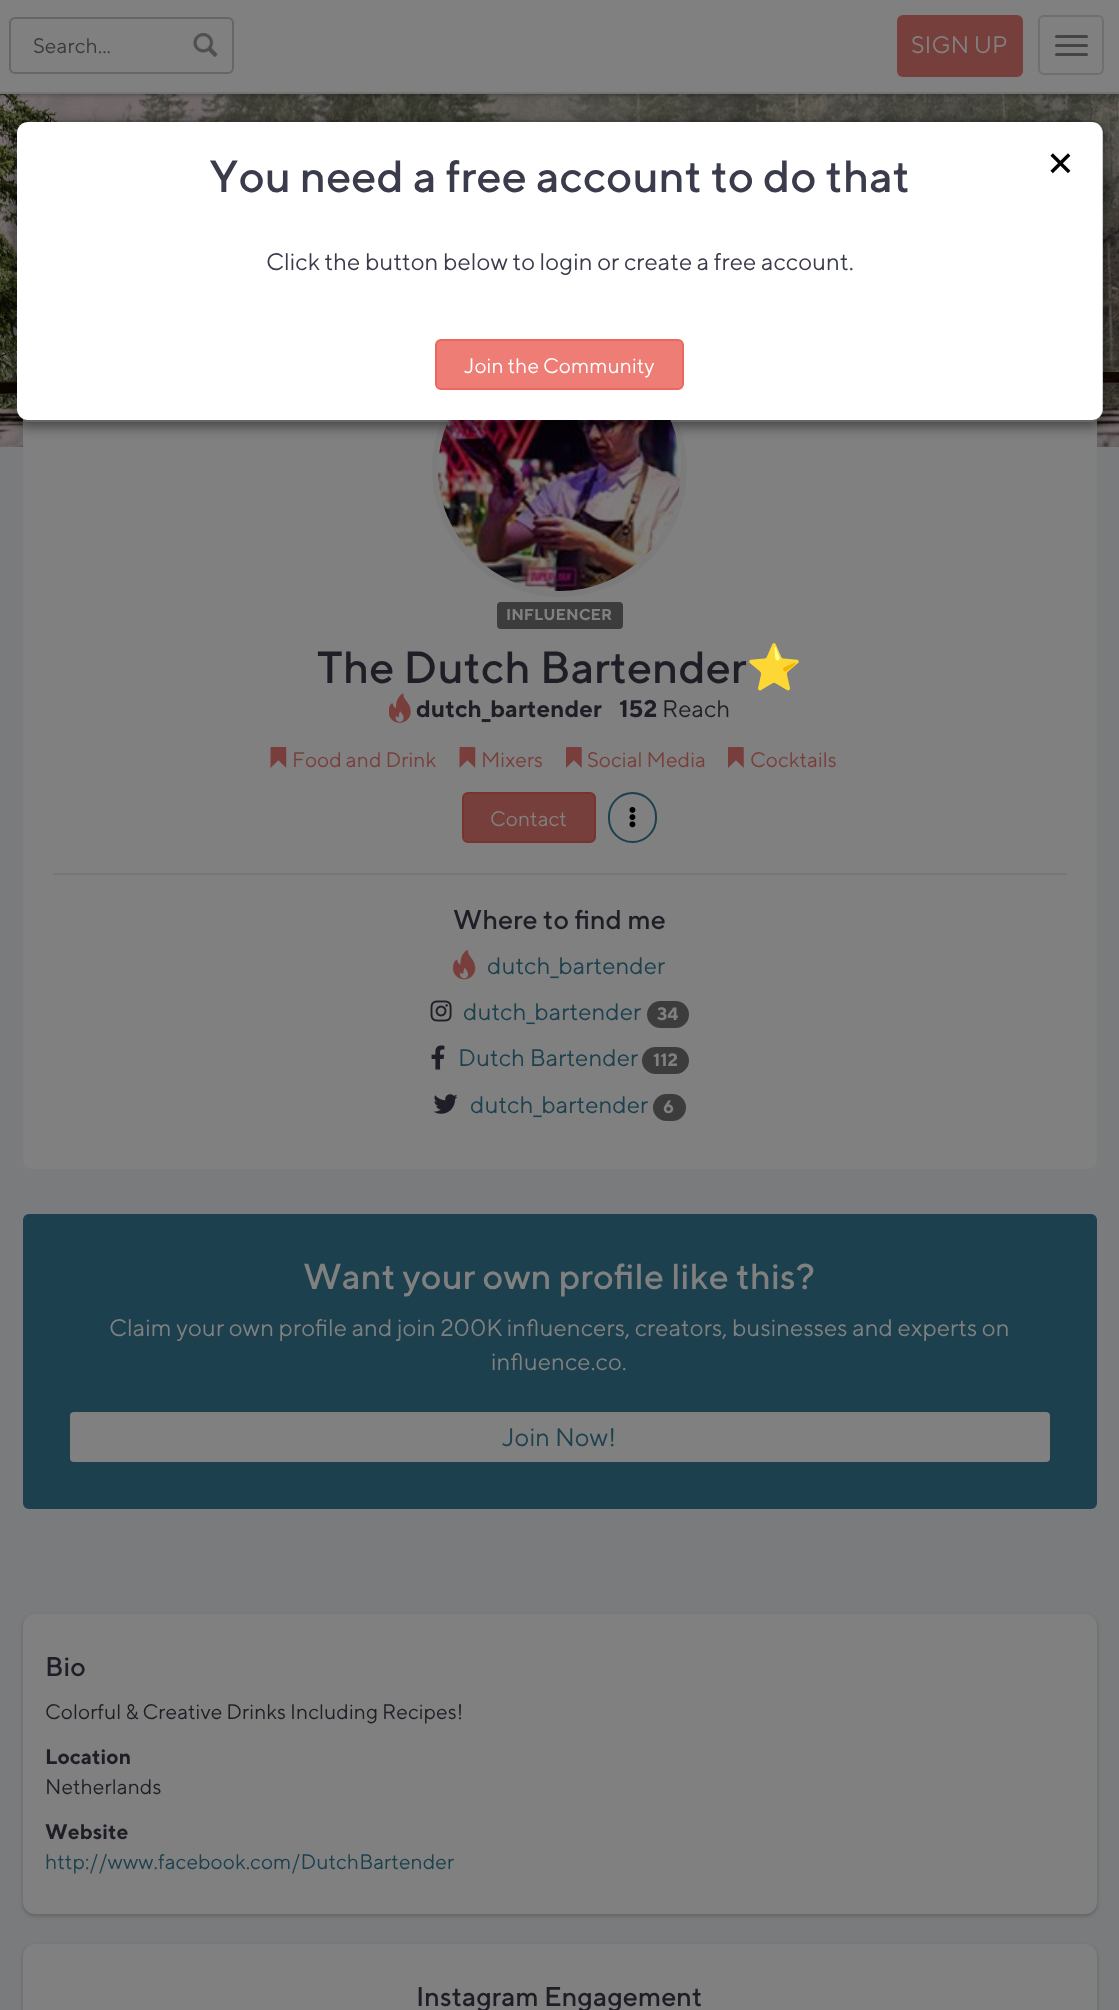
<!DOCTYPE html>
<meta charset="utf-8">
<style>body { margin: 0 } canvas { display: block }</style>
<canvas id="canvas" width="1119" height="2010"></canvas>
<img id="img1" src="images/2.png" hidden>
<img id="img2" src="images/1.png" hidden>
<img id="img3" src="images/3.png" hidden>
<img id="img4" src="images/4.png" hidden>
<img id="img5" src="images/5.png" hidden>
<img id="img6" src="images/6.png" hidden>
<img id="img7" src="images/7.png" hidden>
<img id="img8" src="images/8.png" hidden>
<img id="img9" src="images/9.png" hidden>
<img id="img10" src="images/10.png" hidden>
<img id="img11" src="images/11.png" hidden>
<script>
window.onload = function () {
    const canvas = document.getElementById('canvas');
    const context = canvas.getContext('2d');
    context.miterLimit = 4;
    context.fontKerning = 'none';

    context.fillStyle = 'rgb(121, 123, 124)';
    context.fillRect(0, 0, 1119, 2010);
    context.drawImage(document.getElementById('img1'), 0, 94, 1119, 353);
    context.fillStyle = 'rgba(0, 0, 0, 0.3)';
    context.filter = 'blur(2px)';
    context.beginPath();
    context.rect(0, 2, 1119, 93);
    context.fill();
    context.filter = 'none';
    context.fillStyle = 'rgb(128, 128, 128)';
    context.fillRect(0, 0, 1119, 92);
    context.fillStyle = 'rgb(116, 116, 116)';
    context.fillRect(0, 92, 1119, 2);
    context.drawImage(document.getElementById('img2'), 193, 33, 25, 24);
    context.beginPath();
    context.roundRect(10, 18, 223, 55, 5);
    context.strokeStyle = 'rgb(102, 102, 102)';
    context.lineWidth = 2;
    context.stroke();
    context.fillStyle = 'rgb(119, 63, 59)';
    context.beginPath();
    context.roundRect(897, 15, 126, 62, 6);
    context.fill();
    context.beginPath();
    context.roundRect(1039, 16, 64, 58, 5);
    context.strokeStyle = 'rgb(111, 111, 111)';
    context.stroke();
    context.fillStyle = 'rgb(68, 68, 68)';
    context.beginPath();
    context.roundRect(1055, 35, 33, 3, 1.5);
    context.fill();
    context.beginPath();
    context.roundRect(1055, 44, 33, 3, 1.5);
    context.fill();
    context.beginPath();
    context.roundRect(1055, 53, 33, 3, 1.5);
    context.fill();
    context.fillStyle = 'rgb(128, 128, 128)';
    context.beginPath();
    context.roundRect(23, 387, 1074, 782, 8);
    context.fill();
    context.beginPath();
    context.arc(559.5, 469.5, 124.5, 0, 2 * Math.PI);
    context.strokeStyle = 'rgb(123, 123, 123)';
    context.lineWidth = 6;
    context.stroke();
    context.drawImage(document.getElementById('img3'), 438, 420, 243, 171);
    context.fillStyle = 'rgb(60, 60, 60)';
    context.beginPath();
    context.roundRect(497, 602, 126, 27, 4);
    context.fill();
    context.drawImage(document.getElementById('img4'), 389, 693, 22, 30);
    context.drawImage(document.getElementById('img5'), 270, 747, 17, 21);
    context.drawImage(document.getElementById('img5'), 459, 747, 17, 21);
    context.drawImage(document.getElementById('img6'), 566, 747, 16, 21);
    context.drawImage(document.getElementById('img6'), 728, 747, 16, 21);
    context.fillStyle = 'rgb(119, 63, 59)';
    context.beginPath();
    context.roundRect(463, 793, 132, 49, 5);
    context.fill();
    context.strokeStyle = 'rgb(118, 52, 48)';
    context.lineWidth = 2;
    context.stroke();
    context.beginPath();
    context.roundRect(609, 793, 47, 49, 23.5);
    context.strokeStyle = 'rgb(28, 64, 78)';
    context.stroke();
    context.drawImage(document.getElementById('img7'), 629, 807, 7, 21);
    context.fillStyle = 'rgb(119, 119, 119)';
    context.fillRect(53, 873, 1014, 2);
    context.drawImage(document.getElementById('img8'), 453, 950, 23, 30);
    context.drawImage(document.getElementById('img9'), 430, 1000, 22, 22);
    context.fillStyle = 'rgb(60, 60, 60)';
    context.beginPath();
    context.roundRect(647, 1001, 42, 27, 13.5);
    context.fill();
    context.drawImage(document.getElementById('img10'), 431, 1045, 14, 25);
    context.beginPath();
    context.roundRect(642, 1047, 47, 27, 13.5);
    context.fill();
    context.drawImage(document.getElementById('img11'), 433, 1094, 25, 20);
    context.beginPath();
    context.roundRect(653, 1094, 33, 27, 13.5);
    context.fill();
    context.fillStyle = 'rgb(28, 64, 78)';
    context.beginPath();
    context.roundRect(23, 1214, 1074, 295, 6);
    context.fill();
    context.fillStyle = 'rgb(128, 128, 128)';
    context.beginPath();
    context.roundRect(69, 1411, 982, 52, 5);
    context.fill();
    context.stroke();
    context.fillStyle = 'rgba(0, 0, 0, 0.2)';
    context.filter = 'blur(2px)';
    context.beginPath();
    context.roundRect(23, 1616, 1074, 300, 12);
    context.fill();
    context.filter = 'none';
    context.fillStyle = 'rgb(128, 128, 128)';
    context.beginPath();
    context.roundRect(23, 1614, 1074, 300, 12);
    context.fill();
    context.fillStyle = 'rgba(0, 0, 0, 0.2)';
    context.filter = 'blur(2px)';
    context.beginPath();
    context.roundRect(23, 1946, 1074, 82, 12);
    context.fill();
    context.filter = 'none';
    context.fillStyle = 'rgb(128, 128, 128)';
    context.beginPath();
    context.roundRect(23, 1944, 1074, 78, 12);
    context.fill();
    context.save();
    context.beginPath();
    context.moveTo(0, 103);
    context.lineTo(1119, 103);
    context.lineTo(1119, 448);
    context.lineTo(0, 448);
    context.closePath();
    context.moveTo(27, 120);
    context.lineTo(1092, 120);
    context.bezierCurveTo(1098.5, 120, 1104, 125.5, 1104, 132);
    context.lineTo(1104, 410);
    context.bezierCurveTo(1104, 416.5, 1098.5, 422, 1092, 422);
    context.lineTo(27, 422);
    context.bezierCurveTo(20.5, 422, 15, 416.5, 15, 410);
    context.lineTo(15, 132);
    context.bezierCurveTo(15, 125.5, 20.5, 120, 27, 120);
    context.closePath();
    context.clip('evenodd');
    context.fillStyle = 'rgba(0, 0, 0, 0.5)';
    context.filter = 'blur(7px)';
    context.beginPath();
    context.roundRect(15, 125, 1089, 301, 12);
    context.fill();
    context.filter = 'none';
    context.restore();
    context.fillStyle = 'rgb(255, 255, 255)';
    context.beginPath();
    context.roundRect(17, 122, 1086, 298, 11);
    context.fill();
    context.beginPath();
    context.roundRect(16, 121, 1087, 300, 11);
    context.strokeStyle = 'rgba(0, 0, 0, 0.2)';
    context.stroke();
    context.fillStyle = 'rgb(238, 125, 118)';
    context.beginPath();
    context.roundRect(436, 340, 247, 49, 5);
    context.fill();
    context.strokeStyle = 'rgb(235, 103, 95)';
    context.stroke();
    context.font = '21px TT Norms';
    context.fillStyle = 'rgb(59, 59, 59)';
    context.fillText('Search...', 33, 53);
    context.font = '24px TT Norms';
    context.fillStyle = 'rgb(128, 128, 128)';
    context.fillText('SIGN UP', 911, 53);
    context.font = 'bold 15.75px TT Norms';
    context.fillText('INFLUENCER', 506, 620);
    context.font = '500 45px TT Norms';
    context.fillStyle = 'rgb(30, 30, 38)';
    context.fillText('The Dutch Bartender', 317, 683);
    context.font = '45px Noto Color Emoji';
    context.fillText('⭐', 746, 683);
    context.font = 'bold 24px TT Norms';
    context.fillText('dutch_bartender', 416, 717);
    context.fillText('152', 619, 717);
    context.font = '24px TT Norms';
    context.fillText('Reach', 662, 717);
    context.font = '21px TT Norms';
    context.fillStyle = 'rgb(119, 63, 59)';
    context.fillText('Food and Drink', 292, 767);
    context.fillText('Mixers', 481, 767);
    context.fillText('Social Media', 587, 767);
    context.fillText('Cocktails', 750, 767);
    context.fillStyle = 'rgb(128, 128, 128)';
    context.fillText('Contact', 490, 826);
    context.font = '500 27px TT Norms';
    context.fillStyle = 'rgb(30, 30, 38)';
    context.fillText('Where to find me', 453, 929);
    context.font = '24px TT Norms';
    context.fillStyle = 'rgb(28, 64, 78)';
    context.fillText('dutch_bartender', 487, 974);
    context.fillText('dutch_bartender', 463, 1020);
    context.font = 'bold 18px TT Norms';
    context.fillStyle = 'rgb(128, 128, 128)';
    context.fillText('34', 657, 1020);
    context.font = '24px TT Norms';
    context.fillStyle = 'rgb(28, 64, 78)';
    context.fillText('Dutch Bartender', 458, 1066);
    context.font = 'bold 18px TT Norms';
    context.fillStyle = 'rgb(128, 128, 128)';
    context.fillText('112', 653, 1066);
    context.font = '24px TT Norms';
    context.fillStyle = 'rgb(28, 64, 78)';
    context.fillText('dutch_bartender', 470, 1113);
    context.font = 'bold 18px TT Norms';
    context.fillStyle = 'rgb(128, 128, 128)';
    context.fillText('6', 663, 1113);
    context.font = '500 36px TT Norms';
    context.fillText('Want your own profile like this?', 303, 1289);
    context.font = '24px TT Norms';
    context.fillText('Claim your own profile and join 200K influencers, creators, businesses and experts on', 109, 1336);
    context.fillText('influence.co.', 491, 1370);
    context.font = '25.5px TT Norms';
    context.fillStyle = 'rgb(28, 64, 78)';
    context.fillText('Join Now!', 502, 1446);
    context.font = '500 27px TT Norms';
    context.fillStyle = 'rgb(30, 30, 38)';
    context.fillText('Bio', 45, 1676);
    context.font = '21px TT Norms';
    context.fillText('Colorful & Creative Drinks Including Recipes!', 45, 1719);
    context.font = 'bold 21px TT Norms';
    context.fillText('Location', 45, 1764);
    context.font = '21px TT Norms';
    context.fillText('Netherlands', 45, 1794);
    context.font = 'bold 21px TT Norms';
    context.fillText('Website', 45, 1839);
    context.font = '21px TT Norms';
    context.fillStyle = 'rgb(28, 64, 78)';
    context.fillText('http://www.facebook.com/DutchBartender', 45, 1869);
    context.font = '500 27px TT Norms';
    context.fillStyle = 'rgb(30, 30, 38)';
    context.fillText('Instagram Engagement', 416, 2006);
    context.font = '500 45px TT Norms';
    context.fillStyle = 'rgb(59, 60, 75)';
    context.fillText('You need a free account to do that', 209, 192);
    context.font = '24px TT Norms';
    context.fillText('Click the button below to login or create a free account.', 266, 270);
    context.font = '21px TT Norms';
    context.fillStyle = 'rgb(255, 255, 255)';
    context.fillText('Join the Community', 464, 373);
    context.font = '54px TT Norms';
    context.fillStyle = 'rgb(0, 0, 0)';
    context.fillText('×', 1048, 180);
};
</script>
